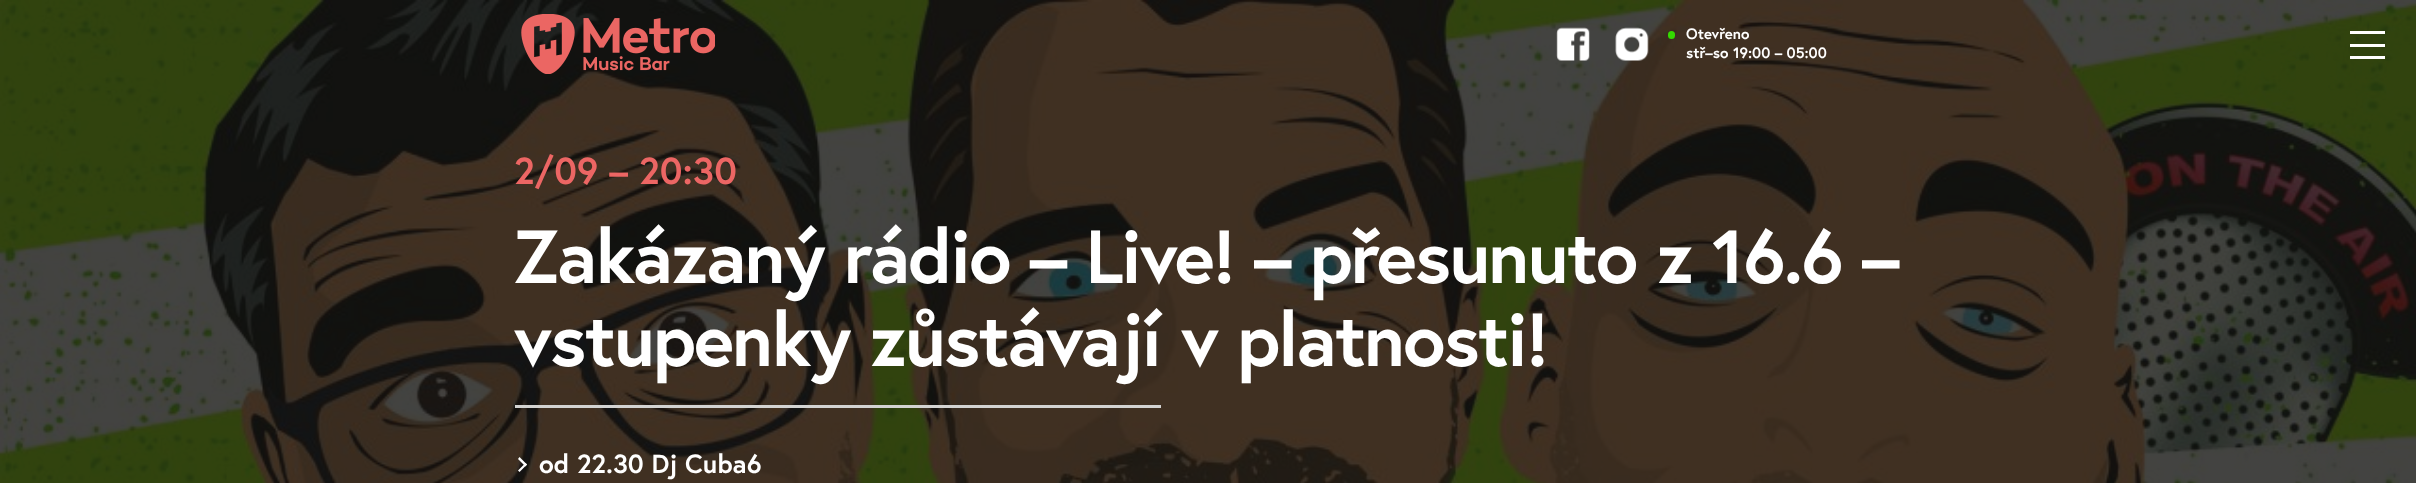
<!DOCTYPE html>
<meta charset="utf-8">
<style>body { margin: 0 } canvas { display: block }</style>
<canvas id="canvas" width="2416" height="483"></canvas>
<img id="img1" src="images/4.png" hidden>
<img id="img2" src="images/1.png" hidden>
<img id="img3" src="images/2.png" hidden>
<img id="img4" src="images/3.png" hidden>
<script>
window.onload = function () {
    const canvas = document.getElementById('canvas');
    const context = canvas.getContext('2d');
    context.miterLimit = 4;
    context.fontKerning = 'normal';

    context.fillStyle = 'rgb(255, 255, 255)';
    context.fillRect(0, 0, 2416, 483);
    context.drawImage(document.getElementById('img1'), 0, 0, 2416, 483);
    context.drawImage(document.getElementById('img2'), 521, 14, 194, 60);
    context.drawImage(document.getElementById('img3'), 1556, 27, 34, 34);
    context.drawImage(document.getElementById('img4'), 1615, 27, 34, 34);
    context.fillStyle = 'rgb(52, 218, 0)';
    context.beginPath();
    context.roundRect(1668, 31, 7, 8, 3.5);
    context.fill();
    context.fillStyle = 'rgb(255, 255, 255)';
    context.fillRect(2350, 31, 35, 3);
    context.fillRect(2350, 44, 35, 3);
    context.fillRect(2350, 56, 35, 3);
    context.fillStyle = 'rgb(211, 211, 210)';
    context.fillRect(515, 405, 646, 3);
    context.fillStyle = 'rgb(255, 255, 255)';
    context.beginPath();
    context.moveTo(525.5, 466.5);
    context.lineTo(518, 459);
    context.lineTo(519.5, 457);
    context.lineTo(527, 464.5);
    context.closePath();
    context.fill();
    context.beginPath();
    context.moveTo(519.5, 472);
    context.lineTo(518, 470.5);
    context.lineTo(525.5, 463);
    context.lineTo(527, 464.5);
    context.closePath();
    context.fill();
    context.font = 'bold 15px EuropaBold';
    context.fillText('Otevřeno', 1686, 39);
    context.fillText('stř–so 19:00 – 05:00', 1686, 58);
    context.font = 'bold 37.5px EuropaBold';
    context.fillStyle = 'rgb(236, 102, 100)';
    context.fillText('2/09 – 20:30', 514, 184);
    context.letterSpacing = '-1.9px';
    context.font = 'bold 75px EuropaBold';
    context.fillStyle = 'rgb(255, 255, 255)';
    context.fillText('Zakázaný rádio – Live! – přesunuto z 16.6 –', 514, 283);
    context.fillText('vstupenky zůstávají v platnosti!', 514, 366);
    context.letterSpacing = '0px';
    context.font = 'bold 26.25px EuropaBold';
    context.fillText('od 22.30 Dj Cuba6', 539, 473);
};
</script>
